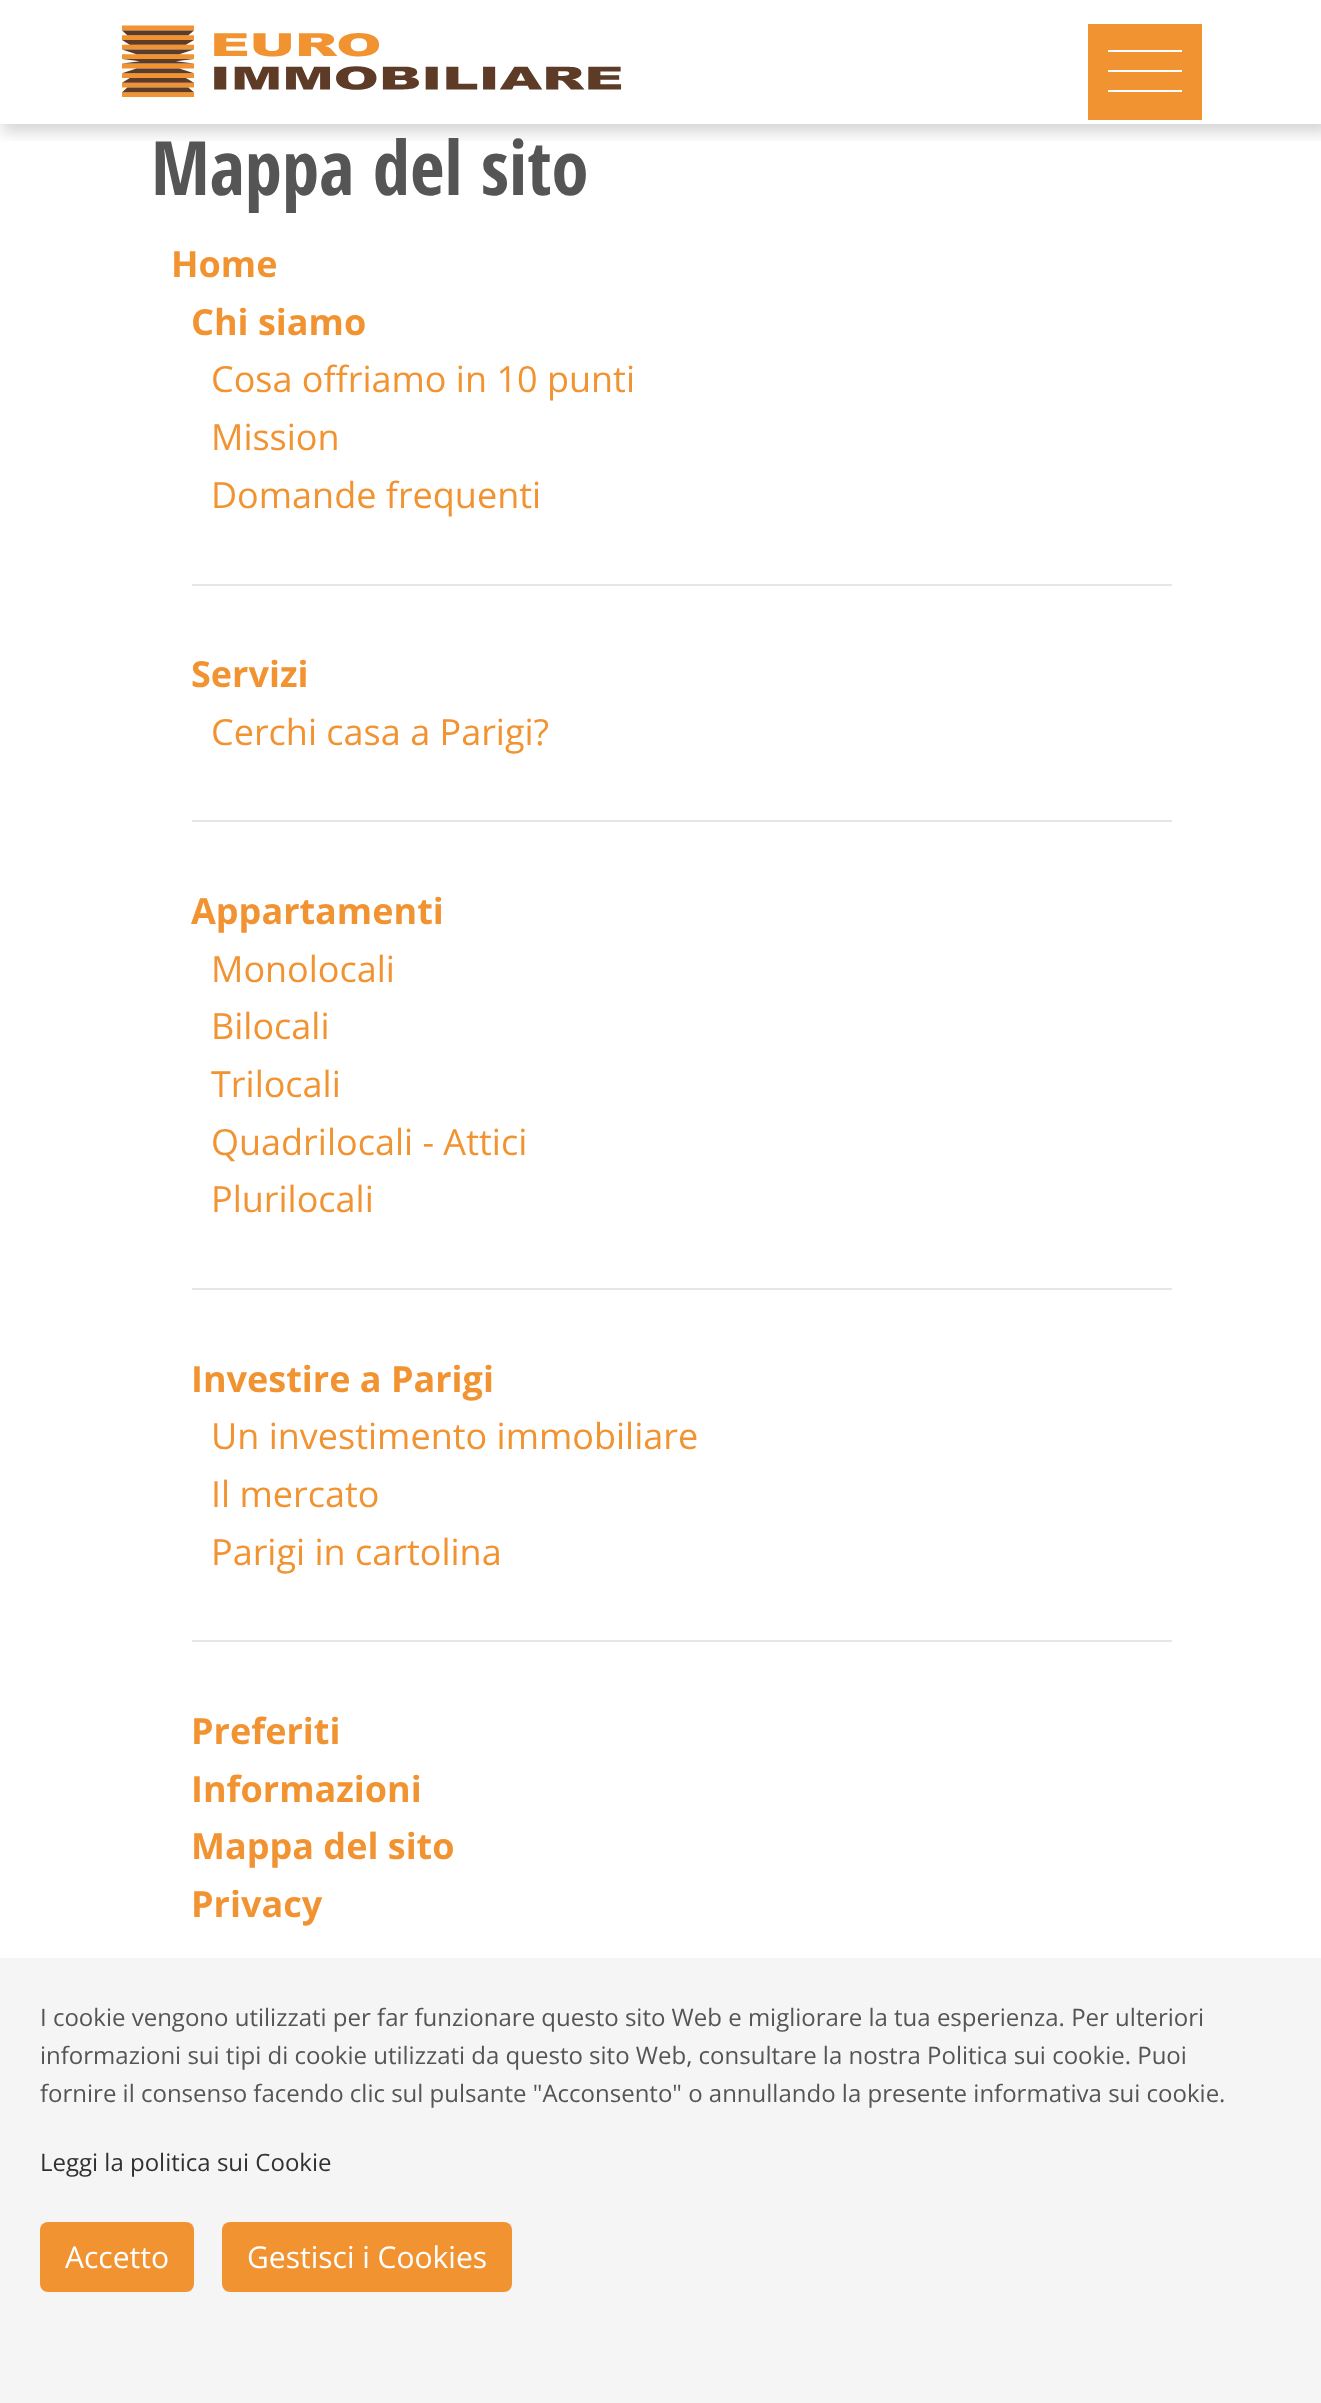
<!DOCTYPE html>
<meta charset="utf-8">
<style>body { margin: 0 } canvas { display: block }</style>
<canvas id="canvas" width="1321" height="2403"></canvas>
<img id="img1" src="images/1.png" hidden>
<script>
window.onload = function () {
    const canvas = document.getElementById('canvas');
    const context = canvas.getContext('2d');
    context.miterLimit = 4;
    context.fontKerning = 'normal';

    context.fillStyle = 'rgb(255, 255, 255)';
    context.fillRect(0, 0, 1321, 2403);
    context.save();
    context.beginPath();
    context.rect(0, 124, 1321, 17);
    context.clip();
    context.fillStyle = 'rgba(0, 0, 0, 0.17)';
    context.filter = 'blur(8px)';
    context.beginPath();
    context.rect(2, -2, 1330, 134);
    context.fill();
    context.filter = 'none';
    context.restore();
    context.drawImage(document.getElementById('img1'), 122, 25, 500, 72);
    context.fillStyle = 'rgb(242, 147, 50)';
    context.fillRect(1088, 24, 114, 96);
    context.fillStyle = 'rgb(255, 255, 255)';
    context.fillRect(1108, 50, 74, 2);
    context.fillRect(1108, 70, 74, 2);
    context.fillRect(1108, 90, 74, 2);
    context.fillStyle = 'rgb(230, 230, 230)';
    context.fillRect(192, 584, 980, 2);
    context.fillRect(192, 820, 980, 2);
    context.fillRect(192, 1288, 980, 2);
    context.fillRect(192, 1640, 980, 2);
    context.fillStyle = 'rgb(245, 245, 245)';
    context.fillRect(0, 1958, 1321, 445);
    context.fillStyle = 'rgb(242, 147, 50)';
    context.beginPath();
    context.roundRect(40, 2222, 154, 70, 8);
    context.fill();
    context.beginPath();
    context.roundRect(222, 2222, 290, 70, 8);
    context.fill();
    context.font = 'bold 75px Open Sans Condensed';
    context.fillStyle = 'rgb(85, 85, 85)';
    context.fillText('Mappa del sito', 151, 195);
    context.font = 'bold 36px Open Sans';
    context.fillStyle = 'rgb(242, 147, 50)';
    context.fillText('Home', 171, 277);
    context.fillText('Chi siamo', 191, 335);
    context.font = '36px Open Sans';
    context.fillText('Cosa offriamo in 10 punti', 211, 392);
    context.fillText('Mission', 211, 450);
    context.fillText('Domande frequenti', 211, 508);
    context.font = 'bold 36px Open Sans';
    context.fillText('Servizi', 191, 687);
    context.font = '36px Open Sans';
    context.fillText('Cerchi casa a Parigi?', 211, 745);
    context.font = 'bold 36px Open Sans';
    context.fillText('Appartamenti', 191, 924);
    context.font = '36px Open Sans';
    context.fillText('Monolocali', 211, 982);
    context.fillText('Bilocali', 211, 1039);
    context.fillText('Trilocali', 211, 1097);
    context.fillText('Quadrilocali - Attici', 211, 1155);
    context.fillText('Plurilocali', 211, 1212);
    context.font = 'bold 36px Open Sans';
    context.fillText('Investire a Parigi', 191, 1392);
    context.font = '36px Open Sans';
    context.fillText('Un investimento immobiliare', 211, 1449);
    context.fillText('Il mercato', 211, 1507);
    context.fillText('Parigi in cartolina', 211, 1565);
    context.font = 'bold 36px Open Sans';
    context.fillText('Preferiti', 191, 1744);
    context.fillText('Informazioni', 191, 1802);
    context.fillText('Mappa del sito', 191, 1859);
    context.fillText('Privacy', 191, 1917);
    context.font = '24px Open Sans';
    context.fillStyle = 'rgb(85, 85, 85)';
    context.fillText('I cookie vengono utilizzati per far funzionare questo sito Web e migliorare la tua esperienza. Per ulteriori', 40, 2026);
    context.fillText('informazioni sui tipi di cookie utilizzati da questo sito Web, consultare la nostra Politica sui cookie. Puoi', 40, 2064);
    context.fillText('fornire il consenso facendo clic sul pulsante "Acconsento" o annullando la presente informativa sui cookie.', 40, 2102);
    context.fillStyle = 'rgb(49, 49, 49)';
    context.fillText('Leggi la politica sui Cookie', 40, 2171);
    context.font = '30px Open Sans';
    context.fillStyle = 'rgb(255, 255, 255)';
    context.fillText('Accetto', 65, 2268);
    context.fillText('Gestisci i Cookies', 247, 2268);
};
</script>
